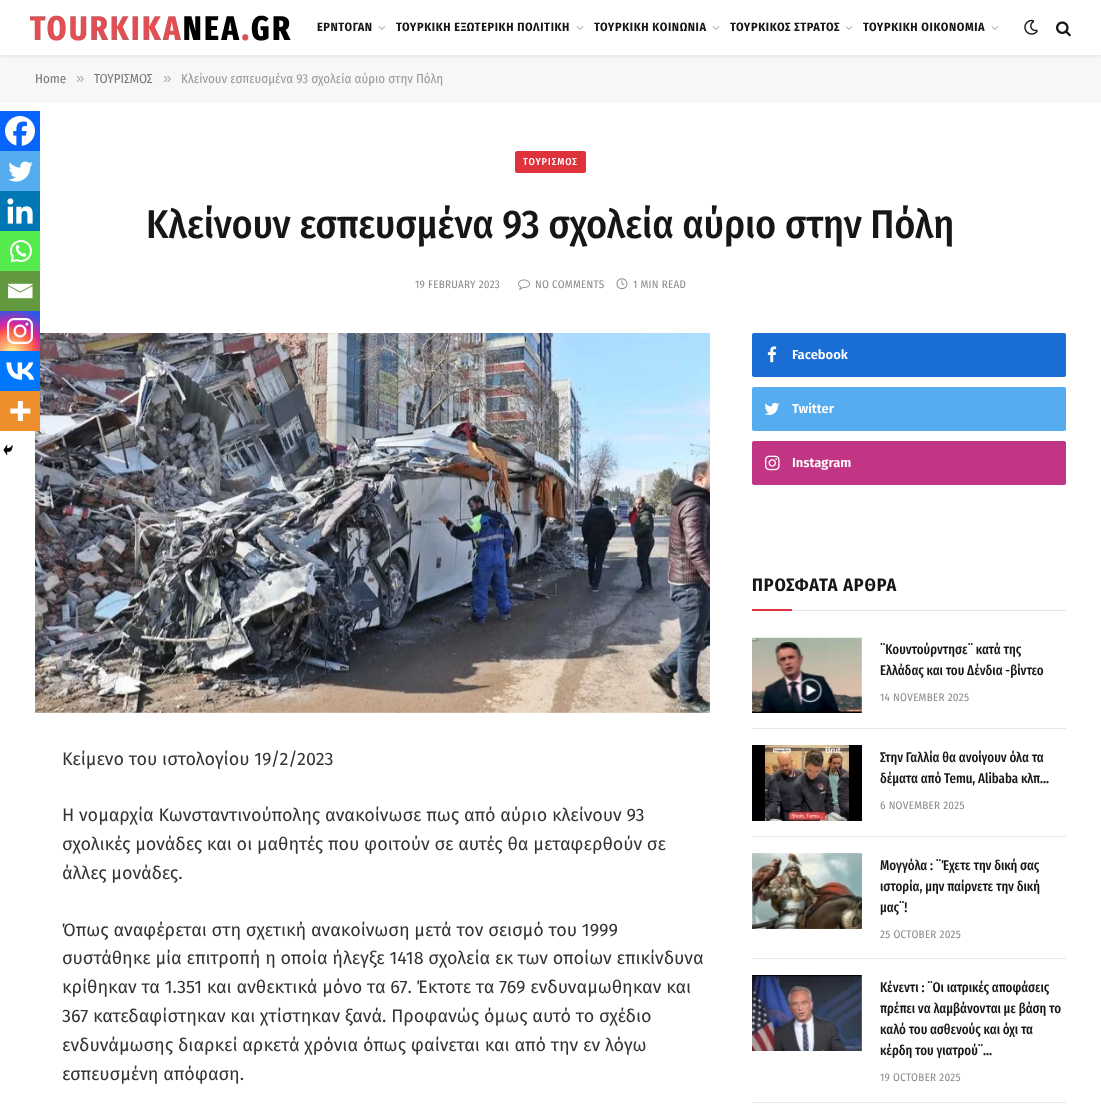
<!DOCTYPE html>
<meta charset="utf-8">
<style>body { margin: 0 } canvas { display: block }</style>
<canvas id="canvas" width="1101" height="1105"></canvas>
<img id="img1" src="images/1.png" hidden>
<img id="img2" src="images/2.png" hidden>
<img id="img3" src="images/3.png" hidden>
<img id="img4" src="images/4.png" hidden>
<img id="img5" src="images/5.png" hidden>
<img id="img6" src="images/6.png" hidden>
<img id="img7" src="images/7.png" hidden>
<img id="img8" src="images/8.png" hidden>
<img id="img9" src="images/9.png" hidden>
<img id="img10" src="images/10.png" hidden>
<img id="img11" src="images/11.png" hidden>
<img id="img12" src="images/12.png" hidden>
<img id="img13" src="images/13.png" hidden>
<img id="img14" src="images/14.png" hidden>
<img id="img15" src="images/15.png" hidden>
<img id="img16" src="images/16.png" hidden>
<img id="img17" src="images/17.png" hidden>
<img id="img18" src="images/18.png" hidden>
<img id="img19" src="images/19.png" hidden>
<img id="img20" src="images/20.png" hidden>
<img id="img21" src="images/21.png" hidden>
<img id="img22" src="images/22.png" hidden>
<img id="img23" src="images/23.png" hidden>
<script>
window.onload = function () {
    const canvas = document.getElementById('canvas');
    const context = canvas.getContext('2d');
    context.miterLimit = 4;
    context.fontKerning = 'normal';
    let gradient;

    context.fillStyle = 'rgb(255, 255, 255)';
    context.fillRect(0, 0, 1101, 1105);
    context.fillStyle = 'rgb(247, 247, 247)';
    context.fillRect(0, 55, 1101, 48);
    context.save();
    context.beginPath();
    context.rect(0, 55, 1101, 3);
    context.clip();
    context.fillStyle = 'rgba(0, 0, 0, 0.05)';
    context.filter = 'blur(2px)';
    context.beginPath();
    context.rect(0, 3, 1101, 55);
    context.fill();
    context.filter = 'none';
    context.restore();
    context.drawImage(document.getElementById('img1'), 30, 15, 261, 26);
    context.drawImage(document.getElementById('img2'), 378, 26, 8, 4);
    context.drawImage(document.getElementById('img2'), 576, 26, 8, 4);
    context.drawImage(document.getElementById('img2'), 712, 26, 8, 4);
    context.drawImage(document.getElementById('img2'), 845, 26, 8, 4);
    context.drawImage(document.getElementById('img2'), 991, 26, 8, 4);
    context.drawImage(document.getElementById('img3'), 1024, 19, 14, 16);
    context.drawImage(document.getElementById('img4'), 1056, 21, 15, 16);
    context.fillStyle = 'rgb(222, 51, 59)';
    context.beginPath();
    context.roundRect(515, 151, 71, 22, 2);
    context.fill();
    context.drawImage(document.getElementById('img5'), 518, 279, 12, 11);
    context.drawImage(document.getElementById('img6'), 616, 278, 12, 12);
    context.drawImage(document.getElementById('img7'), 35, 333, 675, 380);
    context.fillStyle = 'rgb(7, 101, 254)';
    context.fillRect(0, 111, 40, 40);
    context.drawImage(document.getElementById('img8'), 5, 116, 30, 30);
    context.fillStyle = 'rgb(85, 172, 238)';
    context.fillRect(0, 151, 40, 40);
    context.drawImage(document.getElementById('img9'), 8, 161, 25, 21);
    context.fillStyle = 'rgb(0, 119, 181)';
    context.fillRect(0, 191, 40, 40);
    context.drawImage(document.getElementById('img10'), 7, 198, 26, 26);
    context.fillStyle = 'rgb(85, 235, 76)';
    context.fillRect(0, 231, 40, 40);
    context.drawImage(document.getElementById('img11'), 10, 240, 22, 23);
    context.fillStyle = 'rgb(100, 154, 63)';
    context.fillRect(0, 271, 40, 40);
    context.drawImage(document.getElementById('img12'), 8, 283, 25, 16);
    gradient = context.createRadialGradient(12, 354, 0, 12, 354, 51);
    gradient.addColorStop(0, 'rgb(253, 244, 151)');
    gradient.addColorStop(0.05, 'rgb(253, 244, 151)');
    gradient.addColorStop(0.45, 'rgb(253, 89, 73)');
    gradient.addColorStop(0.6, 'rgb(214, 36, 159)');
    gradient.addColorStop(0.9, 'rgb(40, 90, 235)');
    context.fillStyle = gradient;
    context.fillRect(0, 311, 40, 40);
    context.drawImage(document.getElementById('img13'), 7, 318, 26, 26);
    context.fillStyle = 'rgb(0, 119, 255)';
    context.fillRect(0, 351, 40, 40);
    context.drawImage(document.getElementById('img14'), 6, 362, 29, 18);
    context.fillStyle = 'rgb(238, 142, 45)';
    context.fillRect(0, 391, 40, 40);
    context.drawImage(document.getElementById('img15'), 10, 401, 21, 20);
    context.drawImage(document.getElementById('img16'), 3, 444, 10, 12);
    context.fillStyle = 'rgb(26, 109, 212)';
    context.beginPath();
    context.roundRect(752, 333, 314, 44, 2);
    context.fill();
    context.drawImage(document.getElementById('img17'), 767, 346, 10, 17);
    context.fillStyle = 'rgb(85, 172, 239)';
    context.beginPath();
    context.roundRect(752, 387, 314, 44, 2);
    context.fill();
    context.drawImage(document.getElementById('img18'), 764, 402, 16, 13);
    context.fillStyle = 'rgb(193, 53, 132)';
    context.beginPath();
    context.roundRect(752, 441, 314, 44, 2);
    context.fill();
    context.drawImage(document.getElementById('img19'), 765, 455, 15, 16);
    context.fillStyle = 'rgb(226, 226, 226)';
    context.fillRect(792, 610, 274, 1);
    context.fillStyle = 'rgb(222, 51, 59)';
    context.fillRect(752, 609, 40, 2);
    context.drawImage(document.getElementById('img20'), 752, 637, 110, 76);
    context.fillStyle = 'rgb(232, 232, 232)';
    context.fillRect(752, 728, 314, 1);
    context.drawImage(document.getElementById('img21'), 752, 745, 110, 76);
    context.fillRect(752, 836, 314, 1);
    context.drawImage(document.getElementById('img22'), 752, 853, 110, 76);
    context.fillRect(752, 958, 314, 1);
    context.drawImage(document.getElementById('img23'), 752, 975, 110, 76);
    context.fillRect(752, 1102, 314, 1);
    context.letterSpacing = '0.6px';
    context.font = 'bold 12.1px Fira Sans Condensed';
    context.fillStyle = 'rgb(22, 22, 22)';
    context.fillText('ΕΡΝΤΟΓΑΝ', 317, 31);
    context.fillText('ΤΟΥΡΚΙΚΗ ΕΞΩΤΕΡΙΚΗ ΠΟΛΙΤΙΚΗ', 396, 31);
    context.fillText('ΤΟΥΡΚΙΚΗ ΚΟΙΝΩΝΙΑ', 594, 31);
    context.fillText('ΤΟΥΡΚΙΚΟΣ ΣΤΡΑΤΟΣ', 730, 31);
    context.fillText('ΤΟΥΡΚΙΚΗ ΟΙΚΟΝΟΜΙΑ', 863, 31);
    context.letterSpacing = '0px';
    context.font = '13px Fira Sans Condensed';
    context.fillStyle = 'rgb(119, 119, 119)';
    context.fillText('Home', 35, 83);
    context.font = '15px Liberation Sans';
    context.fillStyle = 'rgb(172, 172, 172)';
    context.fillText('»', 76, 83);
    context.font = '13px Fira Sans Condensed';
    context.fillStyle = 'rgb(119, 119, 119)';
    context.fillText('ΤΟΥΡΙΣΜΟΣ', 94, 83);
    context.font = '15px Liberation Sans';
    context.fillStyle = 'rgb(172, 172, 172)';
    context.fillText('»', 163, 83);
    context.font = '13px Fira Sans Condensed';
    context.fillStyle = 'rgb(153, 153, 153)';
    context.fillText('Κλείνουν εσπευσμένα 93 σχολεία αύριο στην Πόλη', 181, 83);
    context.letterSpacing = '1px';
    context.font = '500 10px Fira Sans Condensed';
    context.fillStyle = 'rgb(255, 255, 255)';
    context.fillText('ΤΟΥΡΙΣΜΟΣ', 523, 165);
    context.letterSpacing = '-0.2px';
    context.font = '500 40px Fira Sans Condensed';
    context.fillStyle = 'rgb(22, 22, 22)';
    context.fillText('Κλείνουν εσπευσμένα 93 σχολεία αύριο στην Πόλη', 146, 238);
    context.letterSpacing = '0.3px';
    context.font = '11px Fira Sans Condensed';
    context.fillStyle = 'rgb(138, 138, 138)';
    context.fillText('19 FEBRUARY 2023', 415, 288);
    context.fillText('NO COMMENTS', 535, 288);
    context.fillText('1 MIN READ', 633, 288);
    context.letterSpacing = '0px';
    context.font = '18px Fira Sans';
    context.fillStyle = 'rgb(51, 51, 51)';
    context.fillText('Κείμενο του ιστολογίου 19/2/2023', 62, 765);
    context.fillText('Η νομαρχία Κωνσταντινούπολης ανακοίνωσε πως από αύριο κλείνουν 93', 62, 821);
    context.fillText('σχολικές μονάδες και οι μαθητές που φοιτούν σε αυτές θα μεταφερθούν σε', 62, 850);
    context.fillText('άλλες μονάδες.', 62, 879);
    context.fillText('Όπως αναφέρεται στη σχετική ανακοίνωση μετά τον σεισμό του 1999', 62, 936);
    context.fillText('συστάθηκε μία επιτροπή η οποία ήλεγξε 1418 σχολεία εκ των οποίων επικίνδυνα', 62, 964);
    context.fillText('κρίθηκαν τα 1.351 και ανθεκτικά μόνο τα 67. Έκτοτε τα 769 ενδυναμωθηκαν και', 62, 993);
    context.fillText('367 κατεδαφίστηκαν και χτίστηκαν ξανά. Προφανώς όμως αυτό το σχέδιο', 62, 1022);
    context.fillText('ενδυνάμωσης διαρκεί αρκετά χρόνια όπως φαίνεται και από την εν λόγω', 62, 1051);
    context.fillText('εσπευσμένη απόφαση.', 62, 1080);
    context.font = '600 13px Fira Sans';
    context.fillStyle = 'rgb(255, 255, 255)';
    context.fillText('Facebook', 792, 359);
    context.fillText('Twitter', 792, 413);
    context.fillText('Instagram', 792, 467);
    context.letterSpacing = '0.9px';
    context.font = 'bold 18px Fira Sans Condensed';
    context.fillStyle = 'rgb(22, 22, 22)';
    context.fillText('ΠΡΟΣΦΑΤΑ ΑΡΘΡΑ', 752, 591);
    context.letterSpacing = '0px';
    context.font = '500 14px Fira Sans Extra Condensed';
    context.fillText('¨Κουντούρντησε¨ κατά της', 880, 654);
    context.fillText('Ελλάδας και του Δένδια -βίντεο', 880, 675);
    context.letterSpacing = '0.3px';
    context.font = '11px Fira Sans Condensed';
    context.fillStyle = 'rgb(138, 138, 138)';
    context.fillText('14 NOVEMBER 2025', 880, 701);
    context.letterSpacing = '0px';
    context.font = '500 14px Fira Sans Extra Condensed';
    context.fillStyle = 'rgb(22, 22, 22)';
    context.fillText('Στην Γαλλία θα ανοίγουν όλα τα', 880, 762);
    context.fillText('δέματα από Temu, Alibaba κλπ…', 880, 783);
    context.letterSpacing = '0.3px';
    context.font = '11px Fira Sans Condensed';
    context.fillStyle = 'rgb(138, 138, 138)';
    context.fillText('6 NOVEMBER 2025', 880, 809);
    context.letterSpacing = '0px';
    context.font = '500 14px Fira Sans Extra Condensed';
    context.fillStyle = 'rgb(22, 22, 22)';
    context.fillText('Μογγόλα : ¨Έχετε την δική σας', 880, 870);
    context.fillText('ιστορία, μην παίρνετε την δική', 880, 891);
    context.fillText('μας¨!', 880, 912);
    context.letterSpacing = '0.3px';
    context.font = '11px Fira Sans Condensed';
    context.fillStyle = 'rgb(138, 138, 138)';
    context.fillText('25 OCTOBER 2025', 880, 938);
    context.letterSpacing = '0px';
    context.font = '500 14px Fira Sans Extra Condensed';
    context.fillStyle = 'rgb(22, 22, 22)';
    context.fillText('Κένεντι : ¨Οι ιατρικές αποφάσεις', 880, 992);
    context.fillText('πρέπει να λαμβάνονται με βάση το', 880, 1013);
    context.fillText('καλό του ασθενούς και όχι τα', 880, 1034);
    context.fillText('κέρδη του γιατρού¨…', 880, 1055);
    context.letterSpacing = '0.3px';
    context.font = '11px Fira Sans Condensed';
    context.fillStyle = 'rgb(138, 138, 138)';
    context.fillText('19 OCTOBER 2025', 880, 1081);
};
</script>
